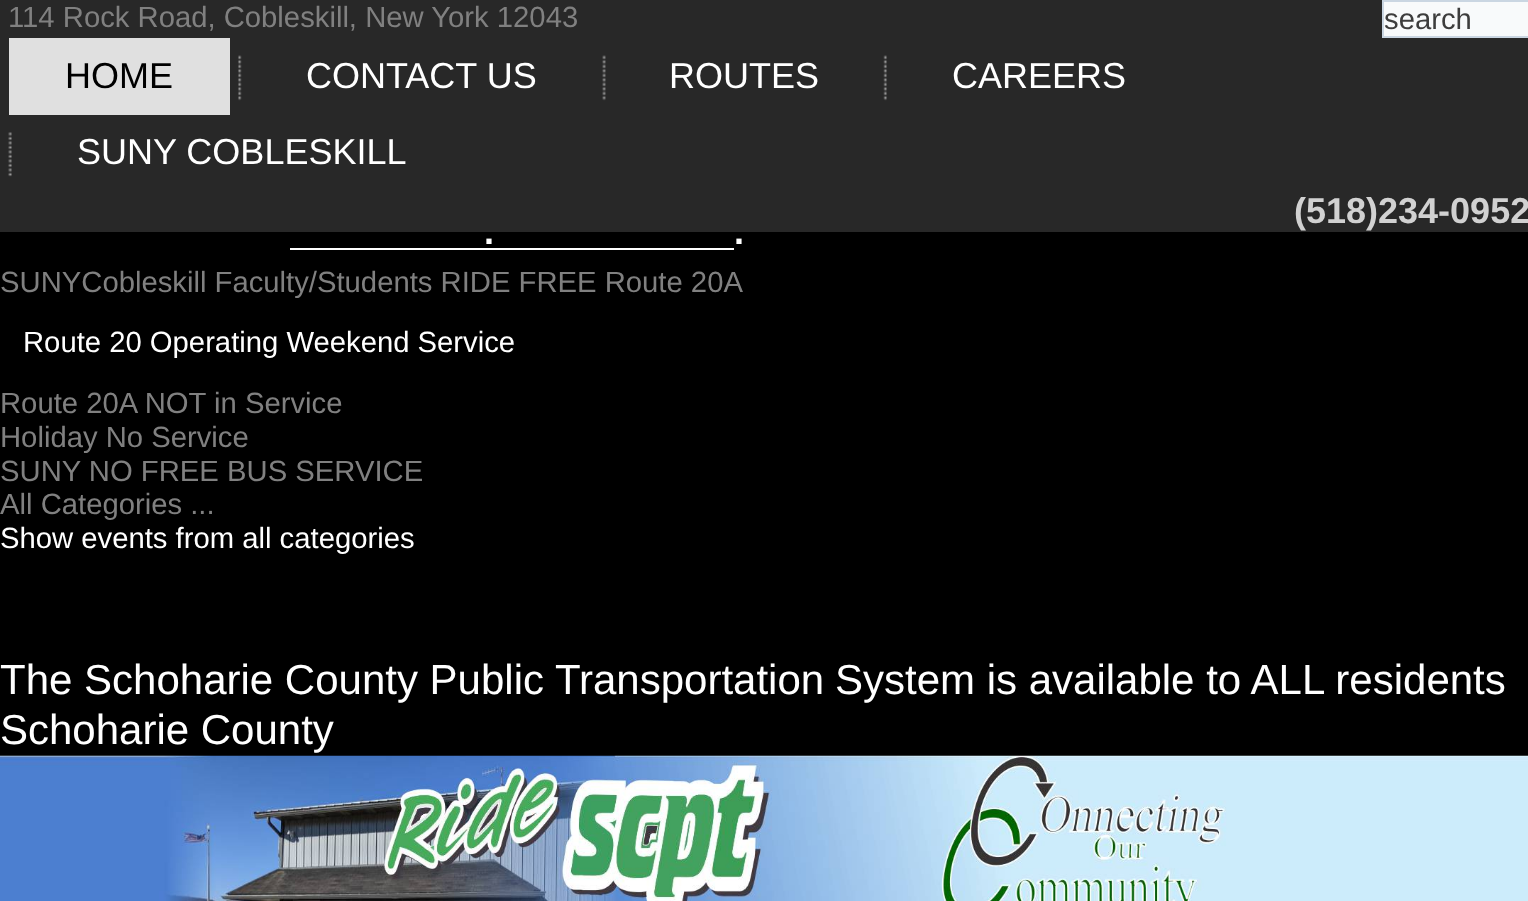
<!DOCTYPE html>
<meta charset="utf-8">
<style>body { margin: 0 } canvas { display: block }</style>
<canvas id="canvas" width="1528" height="901"></canvas>
<img id="img1" src="images/1.png" hidden>
<img id="img2" src="images/2.png" hidden>
<img id="img3" src="images/3.png" hidden>
<img id="img4" src="images/4.png" hidden>
<img id="img5" src="images/5.png" hidden>
<script>
window.onload = function () {
    const canvas = document.getElementById('canvas');
    const context = canvas.getContext('2d');
    context.miterLimit = 4;
    context.fontKerning = 'normal';

    context.fillStyle = 'rgb(0, 0, 0)';
    context.fillRect(0, 0, 1528, 901);
    context.fillStyle = 'rgb(40, 40, 40)';
    context.fillRect(0, 0, 1528, 232);
    context.fillStyle = 'rgb(248, 250, 251)';
    context.beginPath();
    context.rect(1383, 1, 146, 36);
    context.fill();
    context.strokeStyle = 'rgb(202, 214, 226)';
    context.lineWidth = 2;
    context.stroke();
    context.fillStyle = 'rgb(224, 224, 224)';
    context.fillRect(9, 38, 221, 77);
    context.drawImage(document.getElementById('img1'), 238, 55, 4, 46);
    context.drawImage(document.getElementById('img2'), 602, 55, 4, 46);
    context.drawImage(document.getElementById('img3'), 883, 55, 4, 46);
    context.drawImage(document.getElementById('img4'), 8, 132, 4, 45);
    context.fillStyle = 'rgb(255, 255, 255)';
    context.fillRect(290, 248, 444, 2);
    context.drawImage(document.getElementById('img5'), 0, 755, 1528, 146);
    context.font = '29.25px Liberation Sans';
    context.fillStyle = 'rgb(128, 128, 128)';
    context.fillText('114 Rock Road, Cobleskill, New York 12043', 8, 27);
    context.fillStyle = 'rgb(61, 61, 61)';
    context.fillText('search', 1384, 29);
    context.font = '36px Liberation Sans';
    context.fillStyle = 'rgb(0, 0, 0)';
    context.fillText('HOME', 65, 88);
    context.fillStyle = 'rgb(255, 255, 255)';
    context.fillText('CONTACT US', 306, 88);
    context.fillText('ROUTES', 669, 88);
    context.fillText('CAREERS', 952, 88);
    context.fillText('SUNY COBLESKILL', 77, 164);
    context.font = 'bold 36px Liberation Sans';
    context.fillStyle = 'rgb(209, 209, 209)';
    context.fillText('(518)234-0952', 1294, 223);
    context.fillStyle = 'rgb(255, 255, 255)';
    context.fillText('.', 484, 244);
    context.fillText('.', 734, 244);
    context.font = '29.25px Liberation Sans';
    context.fillStyle = 'rgb(128, 128, 128)';
    context.fillText('SUNYCobleskill Faculty/Students RIDE FREE Route 20A', 0, 292);
    context.fillStyle = 'rgb(255, 255, 255)';
    context.fillText('Route 20 Operating Weekend Service', 23, 352);
    context.fillStyle = 'rgb(128, 128, 128)';
    context.fillText('Route 20A NOT in Service', 0, 413);
    context.fillText('Holiday No Service', 0, 447);
    context.fillText('SUNY NO FREE BUS SERVICE', 0, 481);
    context.fillText('All Categories ...', 0, 514);
    context.fillStyle = 'rgb(255, 255, 255)';
    context.fillText('Show events from all categories', 0, 548);
    context.font = '42px Liberation Sans';
    context.fillText('The Schoharie County Public Transportation', 0, 694);
    context.fillText('System is available to ALL residents', 835, 694);
    context.fillText('Schoharie County', 0, 744);
};
</script>
